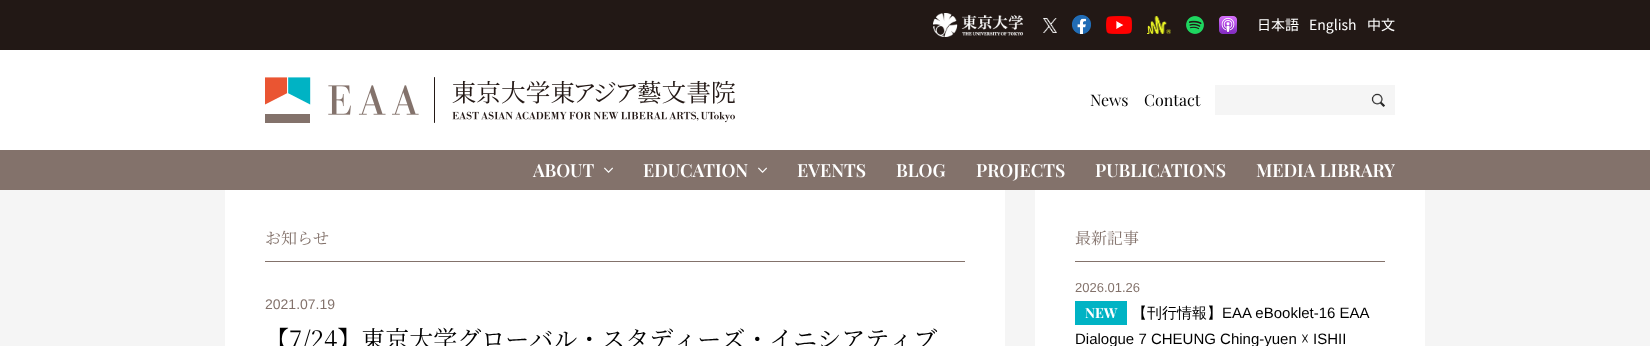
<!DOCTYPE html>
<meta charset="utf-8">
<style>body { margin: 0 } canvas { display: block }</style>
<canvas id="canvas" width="1650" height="346"></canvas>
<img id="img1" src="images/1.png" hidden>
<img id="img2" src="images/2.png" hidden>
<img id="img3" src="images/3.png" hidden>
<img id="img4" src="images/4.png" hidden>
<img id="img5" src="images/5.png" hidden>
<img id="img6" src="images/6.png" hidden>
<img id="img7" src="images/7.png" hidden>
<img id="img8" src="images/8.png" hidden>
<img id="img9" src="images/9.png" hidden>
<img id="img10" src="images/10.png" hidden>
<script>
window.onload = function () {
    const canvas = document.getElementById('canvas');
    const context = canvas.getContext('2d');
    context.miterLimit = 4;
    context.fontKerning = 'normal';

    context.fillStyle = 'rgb(245, 245, 245)';
    context.fillRect(0, 0, 1650, 346);
    context.fillStyle = 'rgb(34, 24, 21)';
    context.fillRect(0, 0, 1650, 50);
    context.drawImage(document.getElementById('img1'), 933, 13, 90, 24);
    context.drawImage(document.getElementById('img2'), 1043, 18, 14, 15);
    context.drawImage(document.getElementById('img3'), 1072, 15, 19, 19);
    context.drawImage(document.getElementById('img4'), 1106, 16, 26, 18);
    context.drawImage(document.getElementById('img5'), 1147, 16, 24, 18);
    context.drawImage(document.getElementById('img6'), 1186, 16, 18, 18);
    context.drawImage(document.getElementById('img7'), 1219, 16, 18, 18);
    context.fillStyle = 'rgb(255, 255, 255)';
    context.fillRect(0, 50, 1650, 100);
    context.drawImage(document.getElementById('img8'), 265, 77, 470, 46);
    context.fillStyle = 'rgb(245, 245, 245)';
    context.fillRect(1215, 85, 180, 30);
    context.drawImage(document.getElementById('img9'), 1371, 93, 14, 14);
    context.fillStyle = 'rgb(131, 114, 107)';
    context.fillRect(0, 150, 1650, 40);
    context.drawImage(document.getElementById('img10'), 604, 167, 9, 6);
    context.drawImage(document.getElementById('img10'), 758, 167, 9, 6);
    context.fillStyle = 'rgb(255, 255, 255)';
    context.fillRect(225, 190, 780, 156);
    context.fillStyle = 'rgb(131, 114, 107)';
    context.fillRect(265, 261, 700, 1);
    context.fillStyle = 'rgb(255, 255, 255)';
    context.fillRect(1035, 190, 390, 156);
    context.fillStyle = 'rgb(131, 114, 107)';
    context.fillRect(1075, 261, 310, 1);
    context.fillStyle = 'rgb(0, 179, 196)';
    context.fillRect(1075, 301, 52, 24);
    context.font = '14px Noto Sans JP';
    context.fillStyle = 'rgb(255, 255, 255)';
    context.fillText('日本語', 1257, 30);
    context.fillText('English', 1309, 30);
    context.fillText('中文', 1367, 30);
    context.font = '16px Playfair Display';
    context.fillStyle = 'rgb(0, 0, 0)';
    context.fillText('News', 1090, 106);
    context.fillText('Contact', 1144, 106);
    context.font = '600 18px Playfair Display';
    context.fillStyle = 'rgb(255, 255, 255)';
    context.fillText('ABOUT', 533, 177);
    context.fillText('EDUCATION', 643, 177);
    context.fillText('EVENTS', 797, 177);
    context.fillText('BLOG', 896, 177);
    context.fillText('PROJECTS', 976, 177);
    context.fillText('PUBLICATIONS', 1095, 177);
    context.fillText('MEDIA LIBRARY', 1256, 177);
    context.font = '16px Noto Serif JP';
    context.fillStyle = 'rgb(131, 114, 107)';
    context.fillText('お知らせ', 265, 244);
    context.font = '14px Liberation Sans';
    context.fillText('2021.07.19', 265, 309);
    context.font = '24px Noto Serif JP';
    context.fillStyle = 'rgb(0, 0, 0)';
    context.fillText('【7/24】東京⼤学グローバル・スタディーズ・イニシアティブ', 265, 348);
    context.font = '16px Noto Serif JP';
    context.fillStyle = 'rgb(131, 114, 107)';
    context.fillText('最新記事', 1075, 244);
    context.font = '13px Liberation Sans';
    context.fillText('2026.01.26', 1075, 292);
    context.font = 'bold 14px Playfair Display';
    context.fillStyle = 'rgb(255, 255, 255)';
    context.fillText('NEW', 1085, 318);
    context.font = '500 15px WenQuanYi Zen Hei';
    context.fillStyle = 'rgb(0, 0, 0)';
    context.fillText('【刊行情報】', 1132, 318);
    context.font = '15px Liberation Sans';
    context.fillText('EAA eBooklet-16 EAA', 1222, 318);
    context.fillText('Dialogue 7 CHEUNG Ching-yuen', 1075, 344);
    context.font = '15px DejaVu Sans';
    context.fillText('☓', 1301, 344);
    context.font = '15px Liberation Sans';
    context.fillText('ISHII', 1313, 344);
};
</script>
